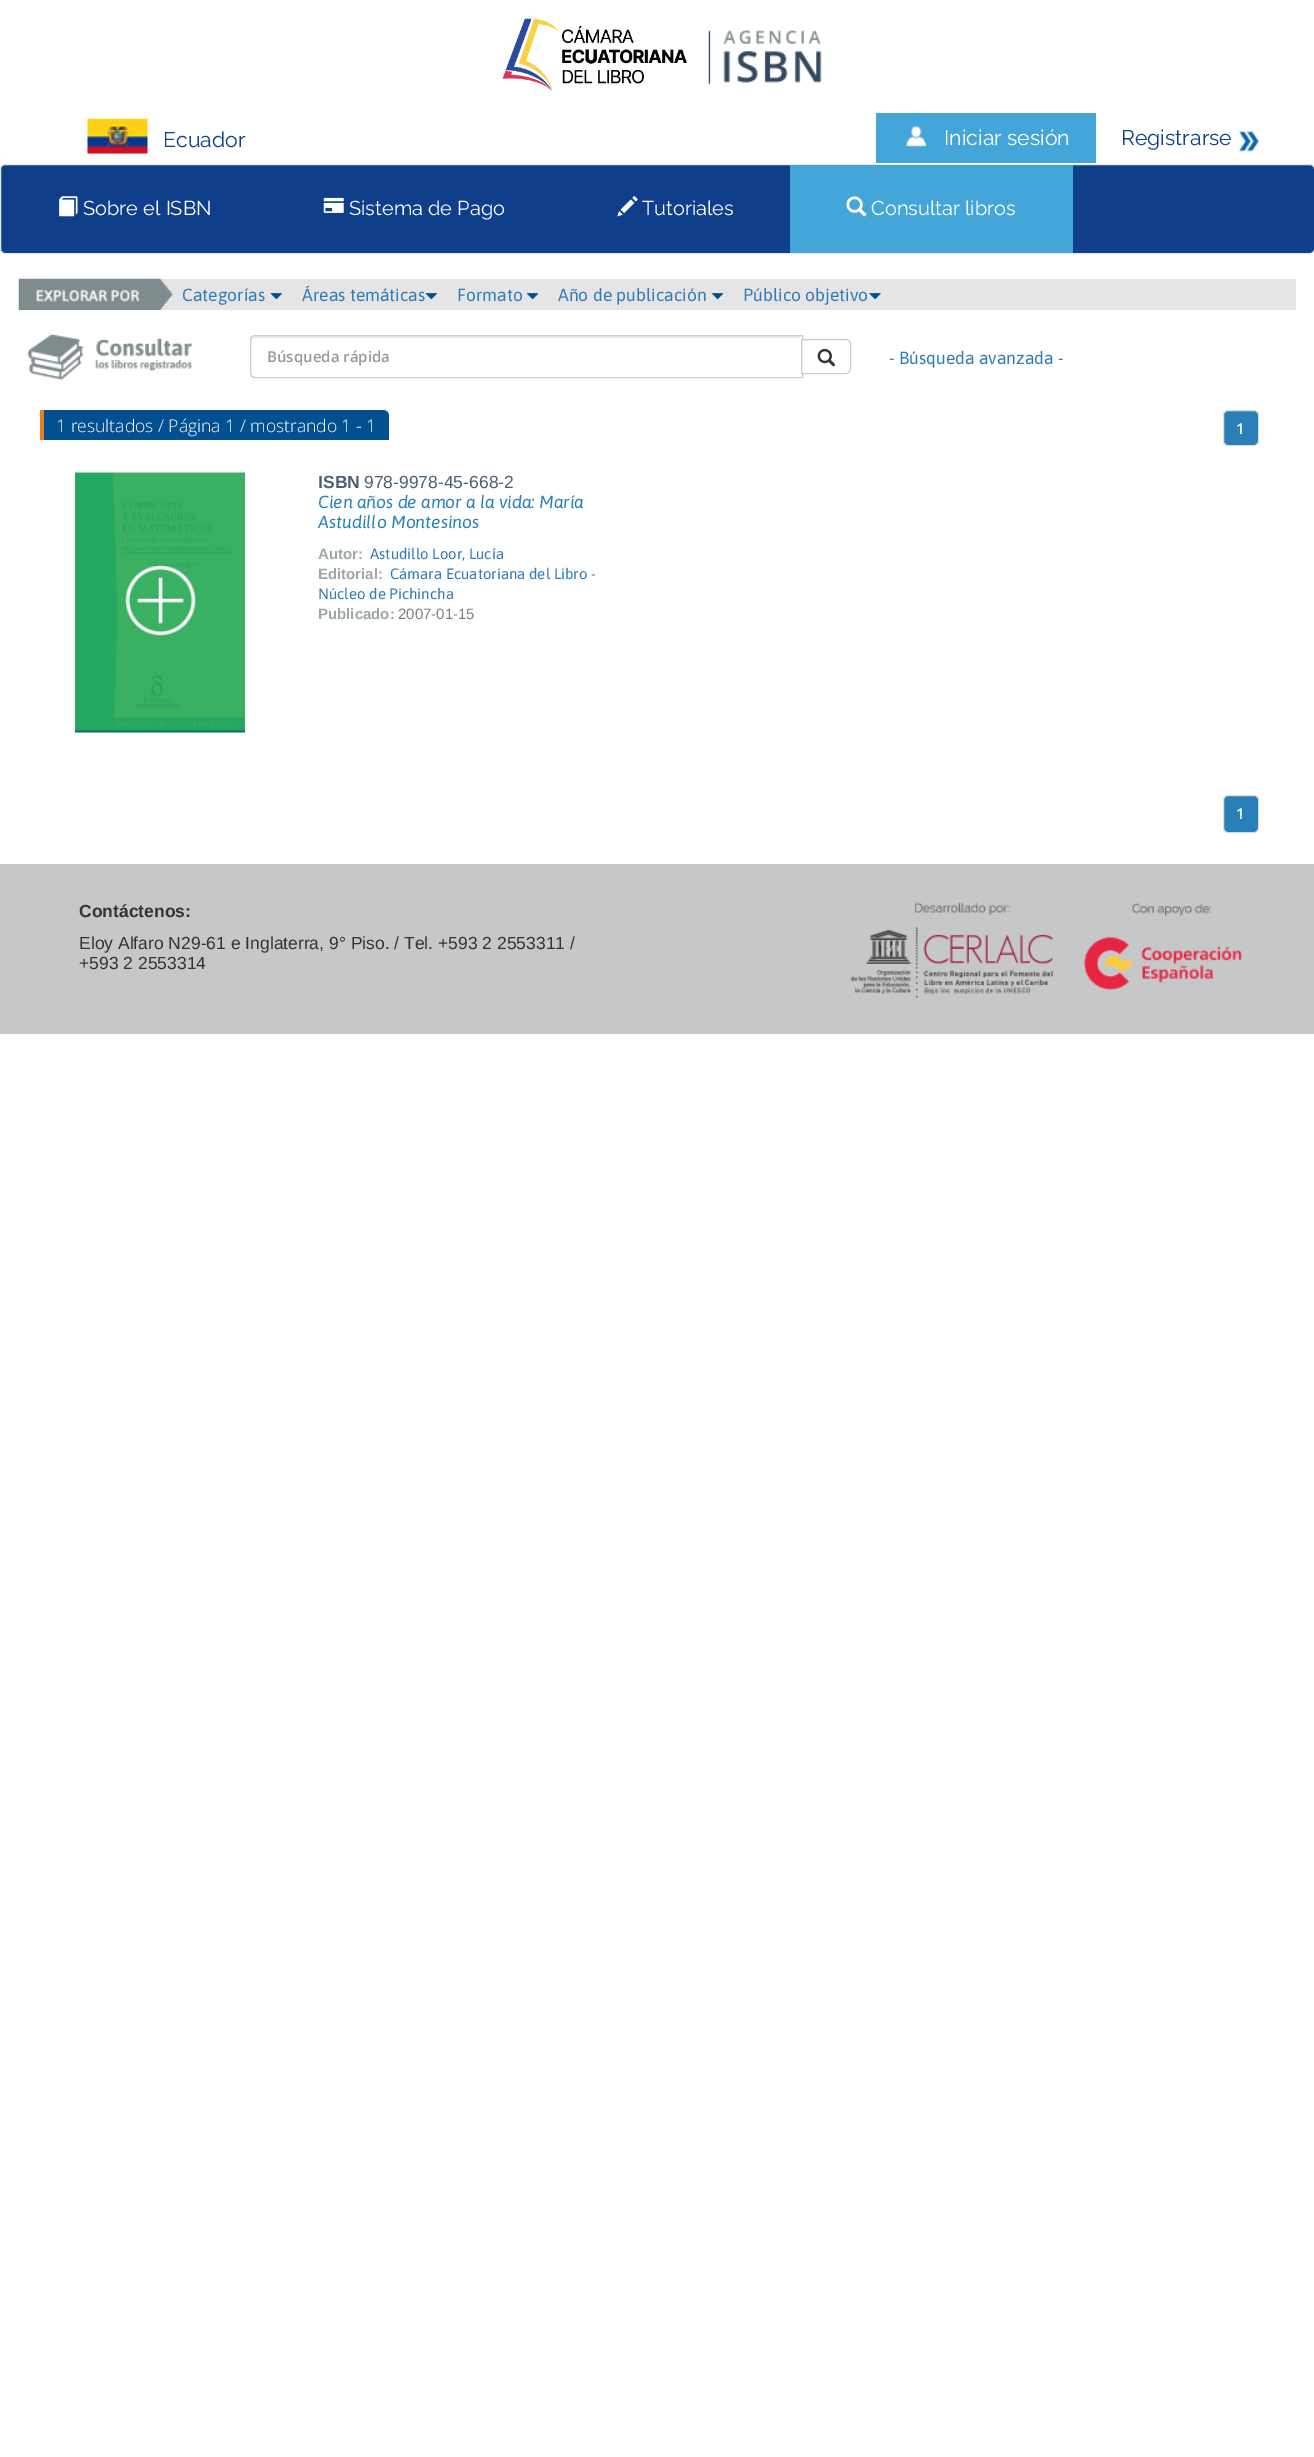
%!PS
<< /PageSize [1314 2457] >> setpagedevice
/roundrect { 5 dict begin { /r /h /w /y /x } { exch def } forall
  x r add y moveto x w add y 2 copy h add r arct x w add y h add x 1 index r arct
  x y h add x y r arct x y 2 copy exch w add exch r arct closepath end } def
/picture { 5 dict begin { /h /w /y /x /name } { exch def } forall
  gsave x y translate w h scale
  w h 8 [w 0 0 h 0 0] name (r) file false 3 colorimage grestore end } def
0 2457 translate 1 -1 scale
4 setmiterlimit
1 setgray
0 0 1314 2457 rectfill
(img1.rgb) 502 18 185 73 picture
(img2.rgb) 708 30 114 54 picture
(img3.rgb) 87 118 61 36 picture
/Raleway-Thin [21.25 0 0 -21.25 0 0] selectfont
0.059 0.243 0.545 setrgbcolor
163 147 moveto (Ecuador) show
0.267 0.647 0.851 setrgbcolor
876 113 220 50 rectfill
(img4.rgb) 906 126 21 21 picture
1 setgray
944 145 moveto (Iniciar sesión) show
0.059 0.243 0.545 setrgbcolor
1121 145 moveto (Registrarse) show
(img5.rgb) 1238 131 21 21 picture
0.5 164.5 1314 89 4.5 roundrect gsave fill grestore
0.906 setgray
stroke
(img6.rgb) 59 196 19 21 picture
/Raleway-Thin [20 0 0 -20 0 0] selectfont
1 setgray
83 215 moveto (Sobre el ISBN) show
(img7.rgb) 323 197 21 16 picture
349 215 moveto (Sistema de Pago) show
(img8.rgb) 617 196 21 21 picture
642 215 moveto (Tutoriales) show
0.267 0.647 0.851 setrgbcolor
790 165 283 88 rectfill
(img9.rgb) 846 196 21 21 picture
1 setgray
871 215 moveto (Consultar libros) show
0.898 setgray
161 279 1135 31 rectfill
(img10.rgb) 18 278 155 32 picture
/Asap-Regular [17.5 0 0 -17.5 0 0] selectfont
0.2 0.478 0.718 setrgbcolor
182 301 moveto (Categorías) show
(img11.rgb) 270 293 12 7 picture
302 301 moveto (Áreas temáticas) show
(img11.rgb) 425 293 12 7 picture
457 301 moveto (Formato) show
(img12.rgb) 526 293 13 7 picture
558 301 moveto (Año de publicación) show
(img12.rgb) 711 293 13 7 picture
743 301 moveto (Público objetivo) show
(img13.rgb) 869 293 12 7 picture
(img14.rgb) 27 333 166 48 picture
0.925 setgray
newpath 255 338 moveto 801 338 lineto 801 336 lineto 255 336 lineto 252 336 251 338 251 341 curveto 251 339 253 338 255 338 curveto closepath fill
0.8 setgray
newpath 255 335.5 moveto 802.5 335.5 lineto 802.5 377.5 lineto 255 377.5 lineto 252.5 377.5 250.5 375.5 250.5 373 curveto 250.5 340 lineto 250.5 337.5 252.5 335.5 255 335.5 curveto closepath stroke
/OpenSans-SemiBold [15 0 0 -15 0 0] selectfont
0.6 setgray
267 362 moveto (Búsqueda rápida) show
1 setgray
newpath 801.5 339.5 moveto 846 339.5 lineto 848.5 339.5 850.5 341.5 850.5 344 curveto 850.5 369 lineto 850.5 371.5 848.5 373.5 846 373.5 curveto 801.5 373.5 lineto closepath gsave fill grestore
0.8 setgray
stroke
(img15.rgb) 817 348 19 19 picture
/Asap-Regular [17.5 0 0 -17.5 0 0] selectfont
0.2 0.478 0.718 setrgbcolor
889 364 moveto (- Búsqueda avanzada -) show
0.008 0.314 0.561 setrgbcolor
newpath 40 410 moveto 383 410 lineto 386.5 410 389 412.5 389 416 curveto 389 440 lineto 40 440 lineto closepath fill
/OpenSans-Light [17.5 0 0 -17.5 0 0] selectfont
1 setgray
56 432 moveto (1 resultados / Página 1 / mostrando 1 - 1) show
0.902 0.494 0.133 setrgbcolor
40 410 4 30 rectfill
0.161 0.502 0.725 setrgbcolor
1223.5 410.5 35 35 4.5 roundrect gsave fill grestore
0.867 setgray
stroke
/OpenSans-SemiBold [15 0 0 -15 0 0] selectfont
1 setgray
1236 434 moveto (1) show
(img16.rgb) 75 472 170 261 picture
/LiberationSans-Bold [17.5 0 0 -17.5 0 0] selectfont
0.302 0.373 0.447 setrgbcolor
318 488 moveto (ISBN) show
/LiberationSans-Regular [17.5 0 0 -17.5 0 0] selectfont
364 488 moveto (978-9978-45-668-2) show
/Asap-Italic [17.5 0 0 -17.5 0 0] selectfont
0.161 0.502 0.725 setrgbcolor
318 508 moveto (Cien años de amor a la vida: María) show
318 528 moveto (Astudillo Montesinos) show
/LiberationSans-Bold [15 0 0 -15 0 0] selectfont
0.616 0.655 0.659 setrgbcolor
318 559 moveto (Autor:) show
/Asap-Regular [15 0 0 -15 0 0] selectfont
0.2 0.478 0.718 setrgbcolor
370 559 moveto (Astudillo Loor, Lucía) show
/LiberationSans-Bold [15 0 0 -15 0 0] selectfont
0.616 0.655 0.659 setrgbcolor
318 579 moveto (Editorial:) show
/Asap-Regular [15 0 0 -15 0 0] selectfont
0.2 0.478 0.718 setrgbcolor
390 579 moveto (Cámara Ecuatoriana del Libro -) show
318 599 moveto (Núcleo de Pichincha) show
/LiberationSans-Bold [15 0 0 -15 0 0] selectfont
0.616 0.655 0.659 setrgbcolor
318 619 moveto (Publicado:) show
/LiberationSans-Regular [15 0 0 -15 0 0] selectfont
0.486 0.502 0.49 setrgbcolor
398 619 moveto (2007-01-15) show
0.161 0.502 0.725 setrgbcolor
1223.5 795.5 35 37 4.5 roundrect gsave fill grestore
0.867 setgray
stroke
/OpenSans-SemiBold [15 0 0 -15 0 0] selectfont
1 setgray
1236 819 moveto (1) show
0.776 0.78 0.784 setrgbcolor
0 864 1314 170 rectfill
/LiberationSans-Bold [17.5 0 0 -17.5 0 0] selectfont
0.2 setgray
79 917 moveto (Contáctenos:) show
/LiberationSans-Regular [17.5 0 0 -17.5 0 0] selectfont
79 949 moveto (Eloy Alfaro N29-61 e Inglaterra, 9° Piso. / Tel. +593 2 2553311 /) show
79 969 moveto (+593 2 2553314) show
(img17.rgb) 850 902 392 96 picture
showpage
